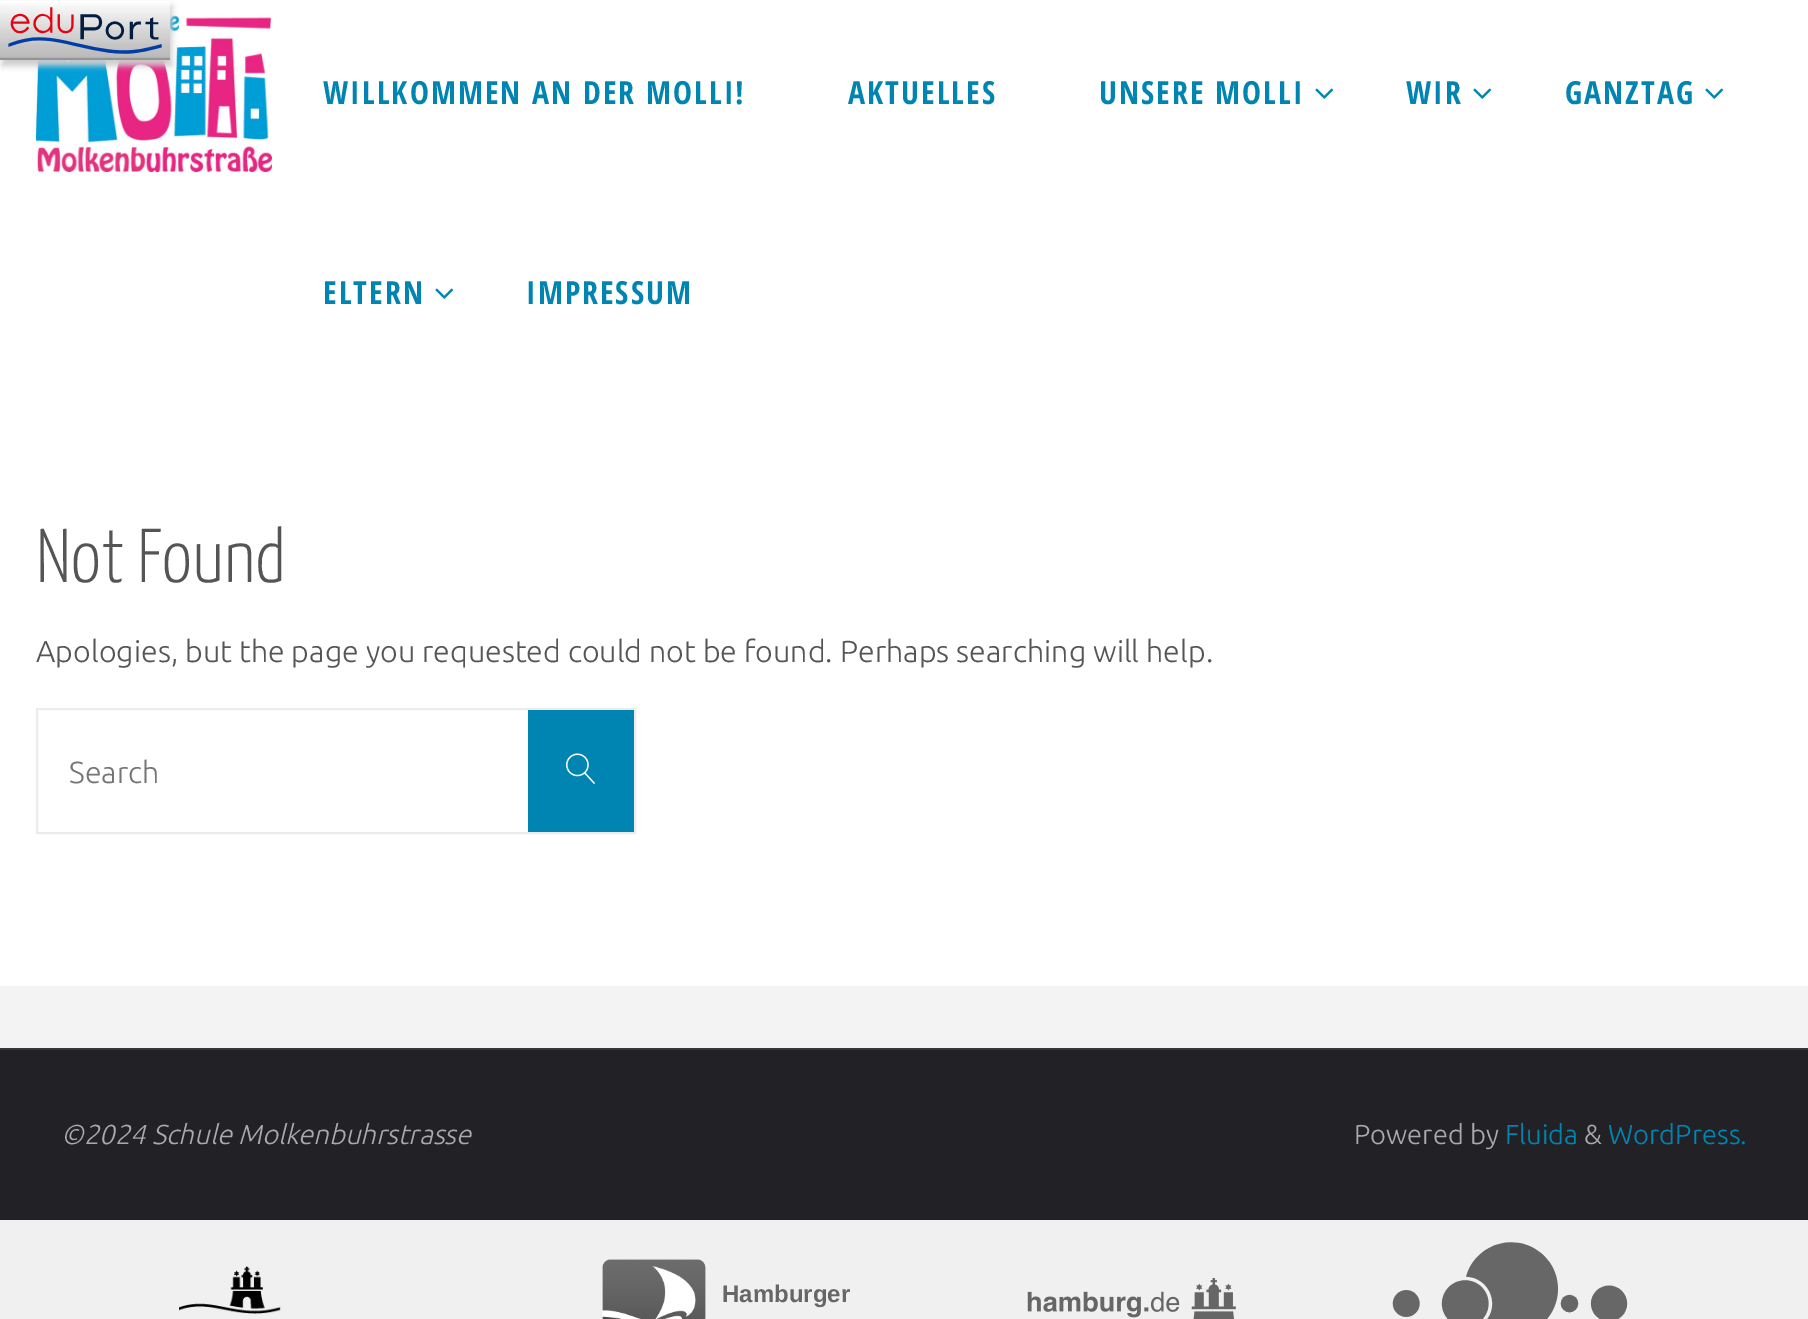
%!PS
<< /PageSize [1808 1319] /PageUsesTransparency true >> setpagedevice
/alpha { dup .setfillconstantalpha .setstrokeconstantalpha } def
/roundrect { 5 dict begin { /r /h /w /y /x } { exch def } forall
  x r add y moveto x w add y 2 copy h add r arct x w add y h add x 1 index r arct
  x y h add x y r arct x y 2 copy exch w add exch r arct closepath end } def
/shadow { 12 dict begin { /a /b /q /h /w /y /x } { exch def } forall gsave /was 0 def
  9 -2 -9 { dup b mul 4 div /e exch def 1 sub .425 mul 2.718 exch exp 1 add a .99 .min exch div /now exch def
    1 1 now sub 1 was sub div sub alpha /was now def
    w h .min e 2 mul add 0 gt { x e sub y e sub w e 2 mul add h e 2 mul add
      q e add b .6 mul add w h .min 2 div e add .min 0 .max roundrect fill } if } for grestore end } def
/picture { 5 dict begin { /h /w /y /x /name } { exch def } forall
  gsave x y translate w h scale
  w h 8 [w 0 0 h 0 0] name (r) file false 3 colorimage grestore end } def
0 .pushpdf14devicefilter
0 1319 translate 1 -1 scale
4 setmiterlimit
0.953 setgray
0 0 1808 1319 rectfill
1 setgray
0 0 1808 986 rectfill
(img2.rgb) 36 12 236 160 picture
0.8 setgray
2 6 170 60 0 3 1 shadow
1 setgray
0 1 170 59 rectfill
(img1.rgb) 0 3 170 57 picture
/OpenSansCondensed-Bold [31.9 0 0 -31.9 0 0] selectfont
0 0.522 0.698 setrgbcolor
323 104 moveto 2 0 (WILLKOMMEN AN DER MOLLI!) ashow
848 104 moveto 2 0 (AKTUELLES) ashow
1099 104 moveto 2 0 (UNSERE MOLLI) ashow
(img3.rgb) 1315 88 19 11 picture
1406 104 moveto 2 0 (WIR) ashow
(img3.rgb) 1473 88 19 11 picture
1565 104 moveto 2 0 (GANZTAG) ashow
(img3.rgb) 1705 88 19 11 picture
323 304 moveto 2 0 (ELTERN) ashow
(img3.rgb) 435 288 19 11 picture
526 304 moveto 2 0 (IMPRESSUM) ashow
/YanoneKaffeesatz-ExtraLight [76 0 0 -76 0 0] selectfont
0.333 setgray
36 582 moveto (Not Found) show
/Ubuntu-Light [30.4 0 0 -30.4 0 0] selectfont
36 662 moveto (Apologies, but the page you requested could not be found. Perhaps searching will help.) show
0.922 setgray
2 setlinewidth
37 709 598 124 rectstroke
0 0.522 0.698 setrgbcolor
528 710 106 122 rectfill
0.459 setgray
69 783 moveto (Search) show
(img4.rgb) 566 753 29 31 picture
0.133 0.133 0.149 setrgbcolor
0 1050 1808 170 rectfill
0.212 0.212 0.227 setrgbcolor
0 1048 1808 2 rectfill
/Ubuntu-LightItalic [27.4 0 0 -27.4 0 0] selectfont
0.667 setgray
61 1144 moveto (©2024 Schule Molkenbuhrstrasse) show
/Ubuntu-Light [27.4 0 0 -27.4 0 0] selectfont
1354 1144 moveto (Powered by) show
0 0.522 0.698 setrgbcolor
1505 1144 moveto (Fluida) show
0.667 setgray
1584 1144 moveto (&) show
0 0.522 0.698 setrgbcolor
1608 1144 moveto (WordPress.) show
0.941 setgray
0 1220 1808 99 rectfill
(img5.rgb) 179 1266 102 48 picture
(img6.rgb) 602 1259 104 60 picture
/LiberationSans-Bold [24 0 0 -24 0 0] selectfont
0.4 setgray
722 1302 moveto (Hamburger) show
(img7.rgb) 1027 1278 209 41 picture
(img8.rgb) 1392 1242 236 77 picture
.poppdf14devicefilter showpage
